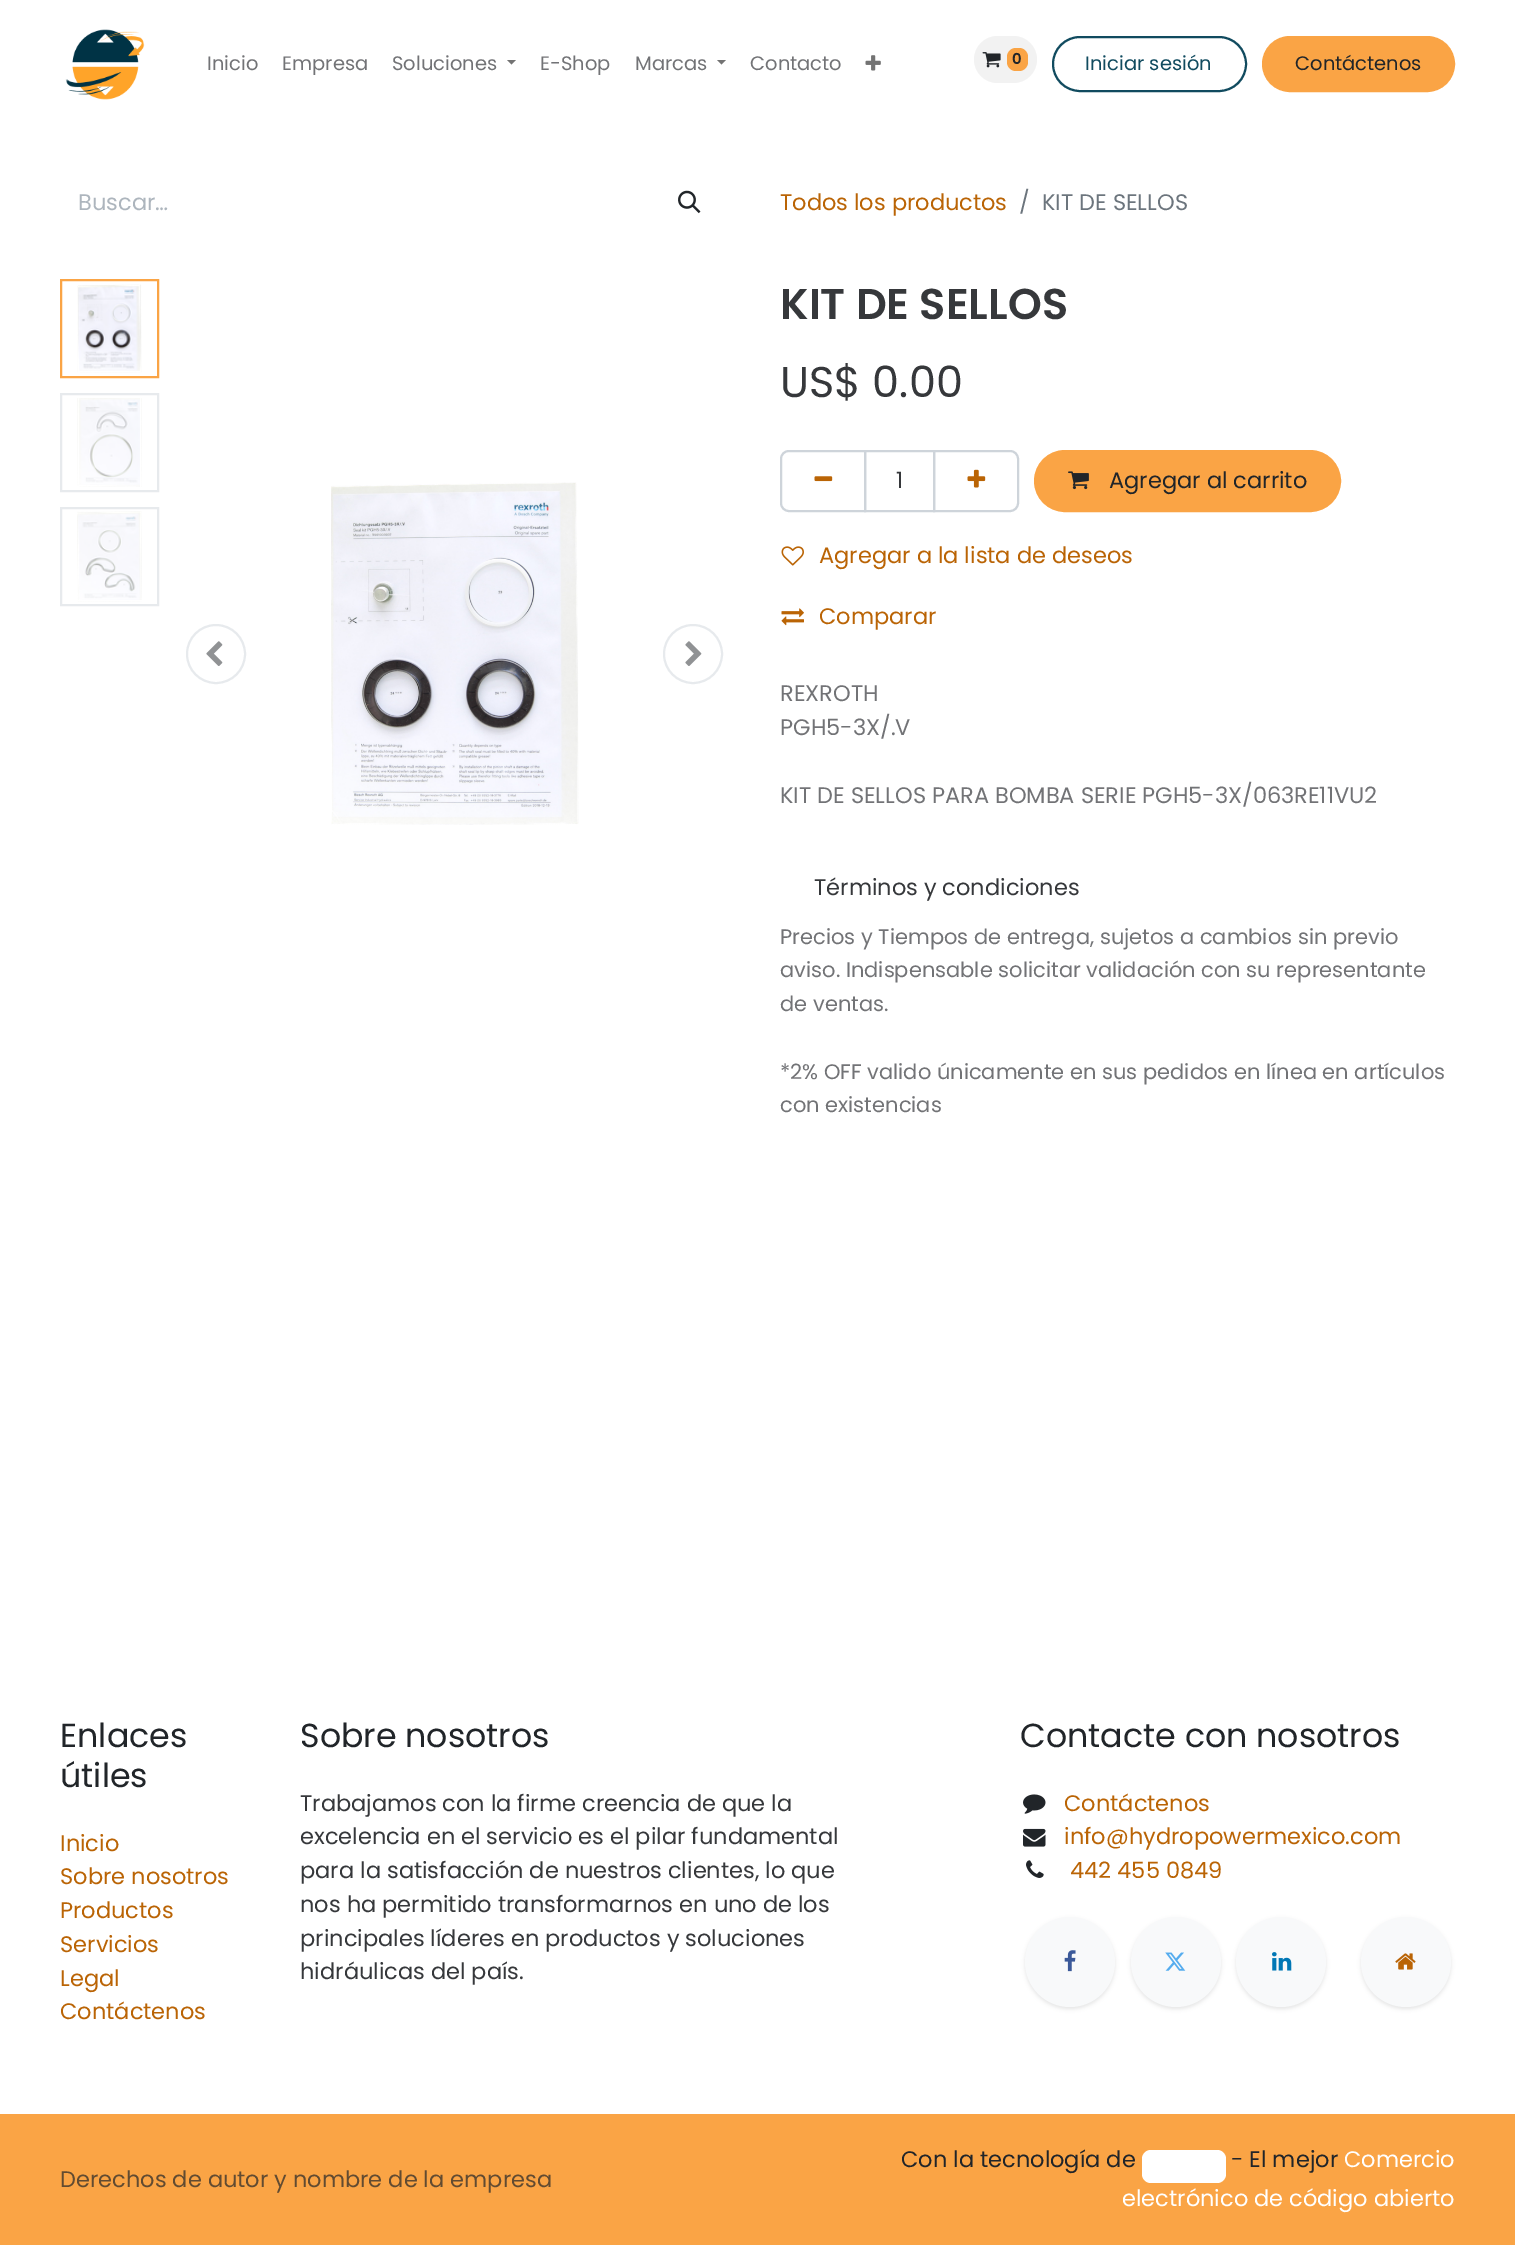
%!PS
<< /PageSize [1515 2245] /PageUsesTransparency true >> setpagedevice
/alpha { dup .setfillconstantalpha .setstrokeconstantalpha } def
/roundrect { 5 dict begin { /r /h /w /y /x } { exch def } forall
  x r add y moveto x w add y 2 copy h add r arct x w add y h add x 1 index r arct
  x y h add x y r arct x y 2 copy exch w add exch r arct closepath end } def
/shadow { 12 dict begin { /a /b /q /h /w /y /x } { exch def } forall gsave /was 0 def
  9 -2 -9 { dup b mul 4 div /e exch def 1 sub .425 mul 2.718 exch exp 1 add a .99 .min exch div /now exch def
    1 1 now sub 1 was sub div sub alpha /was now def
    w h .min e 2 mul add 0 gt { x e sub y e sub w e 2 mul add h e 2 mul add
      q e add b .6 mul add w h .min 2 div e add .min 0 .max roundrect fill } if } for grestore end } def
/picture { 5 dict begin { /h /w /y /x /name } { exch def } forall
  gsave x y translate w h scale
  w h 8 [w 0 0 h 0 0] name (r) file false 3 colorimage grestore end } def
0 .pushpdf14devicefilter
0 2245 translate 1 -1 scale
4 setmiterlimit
1 setgray
0 0 1515 2245 rectfill
(img1.rgb) 65 29 80 71 picture
/Poppins-Regular [19.5 0 0 -19.5 0 0] selectfont
0.447 0.451 0.463 setrgbcolor
207 70 moveto (Inicio) show
282 70 moveto (Empresa) show
392 70 moveto (Soluciones) show
0.451 setgray
newpath 507 60 moveto 516 60 lineto 511.5 64.5 lineto closepath fill
0.447 0.451 0.463 setrgbcolor
540 70 moveto (E-Shop) show
635 70 moveto (Marcas) show
0.451 setgray
newpath 717 60 moveto 726 60 lineto 721.5 64.5 lineto closepath fill
0.447 0.451 0.463 setrgbcolor
750 70 moveto (Contacto) show
(img2.rgb) 865 55 16 16 picture
0.949 setgray
974 36 63 47 23.5 roundrect fill
(img3.rgb) 982 52 19 16 picture
0.98 0.643 0.271 setrgbcolor
1007 48 21 23 9 roundrect fill
/Poppins-SemiBold [15 0 0 -15 0 0] selectfont
0.129 0.145 0.161 setrgbcolor
1012 64 moveto (0) show
0.067 0.294 0.373 setrgbcolor
2 setlinewidth
1053 37 193 54 27 roundrect stroke
/Poppins-Regular [19.5 0 0 -19.5 0 0] selectfont
1085 70 moveto (Iniciar sesión) show
0.98 0.643 0.271 setrgbcolor
1263 37 191 54 27 roundrect gsave fill grestore
stroke
0.129 0.145 0.161 setrgbcolor
1295 70 moveto (Contáctenos) show
/Poppins-Regular [22.5 0 0 -22.5 0 0] selectfont
0.678 0.71 0.741 setrgbcolor
78 210 moveto (Buscar…) show
(img4.rgb) 678 190 23 24 picture
0.729 0.392 0.02 setrgbcolor
780 210 moveto (Todos los productos) show
0.424 0.459 0.49 setrgbcolor
1019 210 moveto (/) show
1042 210 moveto (KIT DE SELLOS) show
0.98 0.643 0.271 setrgbcolor
61 280 97 97 rectstroke
(img5.rgb) 77 284 65 89 picture
0.906 0.918 0.929 setrgbcolor
61 394 97 97 rectstroke
(img6.rgb) 77 398 65 89 picture
61 508 97 97 rectstroke
(img7.rgb) 77 511 65 91 picture
newpath 216 654 29 0 360 arc closepath stroke
(img8.rgb) 206 641 17 25 picture
(img9.rgb) 331 482 248 343 picture
newpath 693 654 29 0 360 arc closepath stroke
(img10.rgb) 685 641 17 25 picture
/Poppins-SemiBold [43 0 0 -43 0 0] selectfont
0.212 0.22 0.231 setrgbcolor
780 319 moveto (KIT DE SELLOS) show
/Poppins-Regular [43 0 0 -43 0 0] selectfont
780 397 moveto (US$ 0.00) show
0.808 0.831 0.855 setrgbcolor
865 451 69 60 rectstroke
newpath 789 451 moveto 865 451 lineto 865 511 lineto 789 511 lineto 784.5 511 781 507.5 781 503 curveto 781 459 lineto 781 454.5 784.5 451 789 451 curveto closepath stroke
(img11.rgb) 814 476 19 6 picture
/Poppins-Regular [22.5 0 0 -22.5 0 0] selectfont
0.212 0.22 0.231 setrgbcolor
896 488 moveto (1) show
0.808 0.831 0.855 setrgbcolor
newpath 934 451 moveto 1010 451 lineto 1014.5 451 1018 454.5 1018 459 curveto 1018 503 lineto 1018 507.5 1014.5 511 1010 511 curveto 934 511 lineto closepath stroke
(img12.rgb) 967 469 19 19 picture
0.98 0.643 0.271 setrgbcolor
1035 451 305 60 30 roundrect gsave fill grestore
stroke
(img13.rgb) 1068 471 21 19 picture
0.129 0.145 0.161 setrgbcolor
1109 488 moveto (Agregar al carrito) show
(img14.rgb) 781 546 23 20 picture
0.729 0.392 0.02 setrgbcolor
819 563 moveto (Agregar a la lista de deseos) show
(img15.rgb) 781 608 23 18 picture
819 624 moveto (Comparar) show
0.447 0.451 0.463 setrgbcolor
780 701 moveto (REXROTH) show
780 735 moveto (PGH5-3X/.V) show
780 803 moveto (KIT DE SELLOS PARA BOMBA SERIE PGH5-3X/063RE11VU2) show
0.212 0.22 0.231 setrgbcolor
814 895 moveto (Términos y condiciones) show
/Poppins-Regular [21 0 0 -21 0 0] selectfont
0.447 0.451 0.463 setrgbcolor
780 944 moveto (Precios y Tiempos de entrega, sujetos a cambios sin previo) show
780 977 moveto (aviso. Indispensable solicitar validación con su representante) show
780 1011 moveto (de ventas.) show
780 1079 moveto (*2% OFF valido únicamente en sus pedidos en línea en artículos) show
780 1112 moveto (con existencias) show
/Poppins-Regular [33.25 0 0 -33.25 0 0] selectfont
0.129 0.145 0.161 setrgbcolor
60 1747 moveto (Enlaces) show
60 1787 moveto (útiles) show
/Poppins-Regular [22.5 0 0 -22.5 0 0] selectfont
0.729 0.392 0.02 setrgbcolor
60 1851 moveto (Inicio) show
60 1884 moveto (Sobre nosotros) show
60 1918 moveto (Productos) show
60 1952 moveto (Servicios) show
60 1986 moveto (Legal) show
60 2019 moveto (Contáctenos) show
/Poppins-Regular [33.25 0 0 -33.25 0 0] selectfont
0.129 0.145 0.161 setrgbcolor
300 1747 moveto (Sobre nosotros) show
/Poppins-Regular [22.5 0 0 -22.5 0 0] selectfont
0.212 0.22 0.231 setrgbcolor
300 1811 moveto (Trabajamos con la firme creencia de que la) show
300 1844 moveto (excelencia en el servicio es el pilar fundamental) show
300 1878 moveto (para la satisfacción de nuestros clientes, lo que) show
300 1912 moveto (nos ha permitido transformarnos en uno de los) show
300 1946 moveto (principales líderes en productos y soluciones) show
300 1979 moveto (hidráulicas del país.) show
/Poppins-Regular [33.25 0 0 -33.25 0 0] selectfont
0.129 0.145 0.161 setrgbcolor
1020 1747 moveto (Contacte con nosotros) show
(img16.rgb) 1023 1794 23 20 picture
/Poppins-Regular [22.5 0 0 -22.5 0 0] selectfont
0.729 0.392 0.02 setrgbcolor
1064 1811 moveto (Contáctenos) show
(img17.rgb) 1023 1828 23 19 picture
1064 1844 moveto (info@hydropowermexico.com) show
(img18.rgb) 1026 1860 18 18 picture
1070 1878 moveto (442 455 0849) show
0 setgray
1025 1919 90 90 45 2 0.1 shadow
0.973 0.976 0.98 setrgbcolor
newpath 1070 1962 45 0 360 arc closepath fill
(img19.rgb) 1064 1950 12 22 picture
0 setgray
1131 1919 90 90 45 2 0.1 shadow
0.973 0.976 0.98 setrgbcolor
newpath 1176 1962 45 0 360 arc closepath fill
(img20.rgb) 1165 1952 21 19 picture
0 setgray
1236 1919 90 90 45 2 0.1 shadow
0.973 0.976 0.98 setrgbcolor
newpath 1281 1962 45 0 360 arc closepath fill
(img21.rgb) 1272 1952 20 19 picture
0 setgray
1361 1919 90 90 45 2 0.1 shadow
0.973 0.976 0.98 setrgbcolor
newpath 1406 1962 45 0 360 arc closepath fill
(img22.rgb) 1395 1953 21 17 picture
0.98 0.643 0.271 setrgbcolor
0 2114 1515 131 rectfill
0.384 0.294 0.192 setrgbcolor
60 2187 moveto (Derechos de autor y nombre de la empresa) show
0.129 0.145 0.161 setrgbcolor
901 2167 moveto (Con la tecnología de) show
1 setgray
1142 2150 84 33 9 roundrect fill
0.129 0.145 0.161 setrgbcolor
1231 2167 moveto (- El mejor) show
1 setgray
1344 2167 moveto (Comercio) show
1122 2206 moveto (electrónico de código abierto) show
.poppdf14devicefilter showpage
